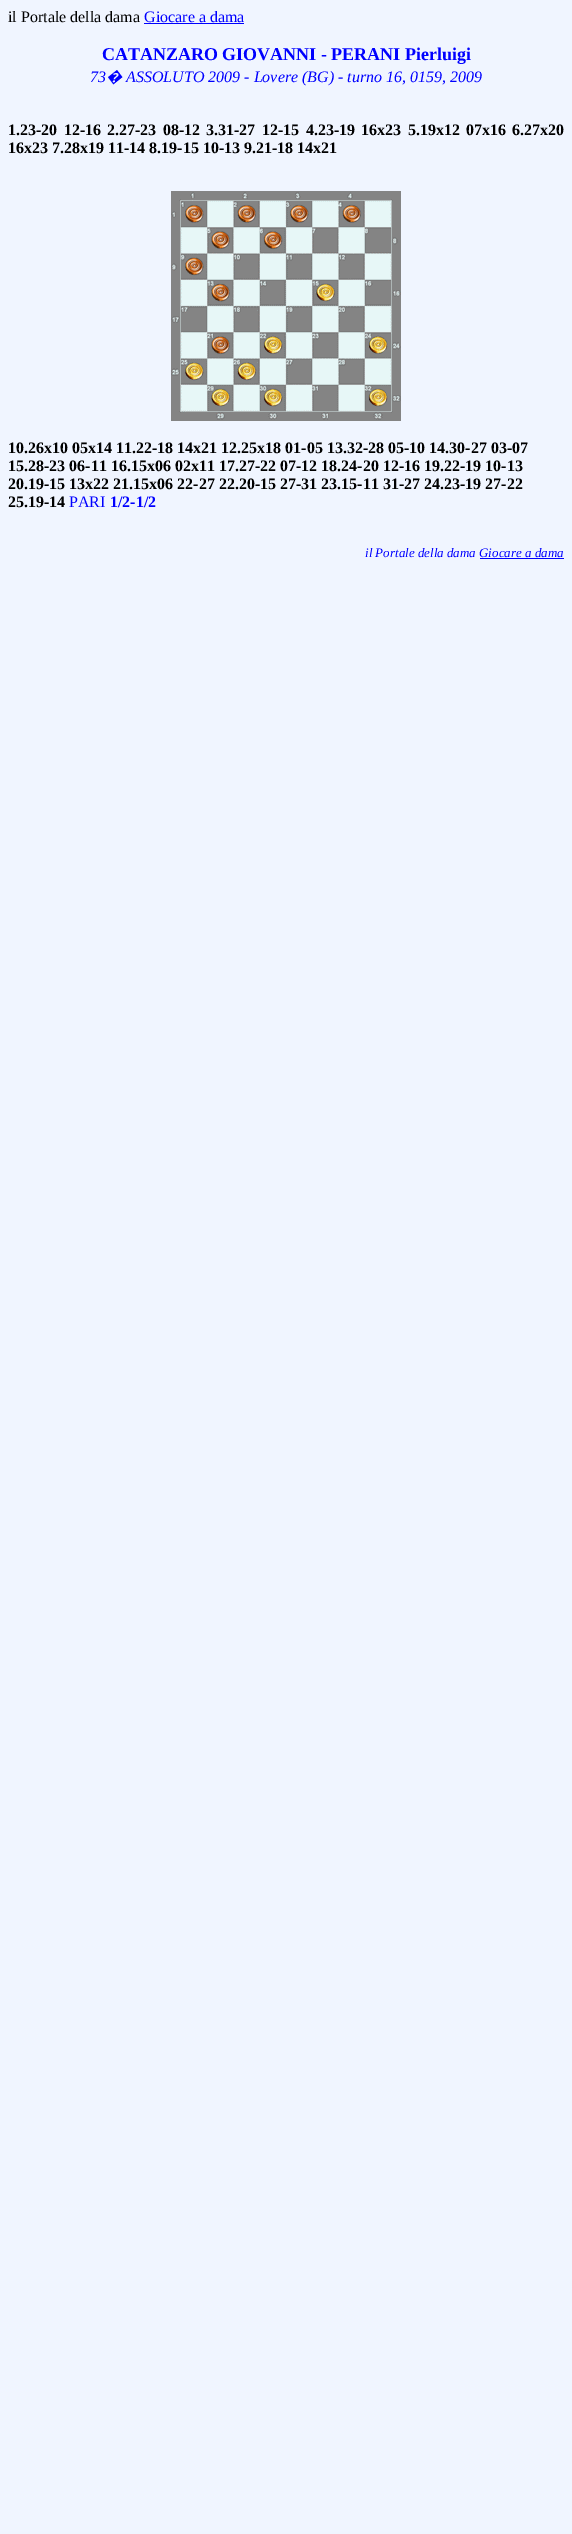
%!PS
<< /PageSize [572 2534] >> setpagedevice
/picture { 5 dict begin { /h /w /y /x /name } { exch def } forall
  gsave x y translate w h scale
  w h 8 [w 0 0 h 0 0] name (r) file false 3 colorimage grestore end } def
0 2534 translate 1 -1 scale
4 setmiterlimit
0.941 0.961 1 setrgbcolor
0 0 572 2534 rectfill
/LiberationSerif-Regular [16 0 0 -16 0 0] selectfont
0 setgray
8 22 moveto (il Portale della dama) show
0 0 1 setrgbcolor
144 22 moveto (Giocare a dama) show
144 23 100 1 rectfill
/LiberationSerif-Bold [18 0 0 -18 0 0] selectfont
102 60 moveto (CATANZARO GIOVANNI - PERANI Pierluigi) show
/LiberationSerif-Italic [16 0 0 -16 0 0] selectfont
90 82 moveto (73) show
/NotoSans-Italic [16 0 0 -16 0 0] selectfont
106 82 moveto (�) show
/LiberationSerif-Italic [16 0 0 -16 0 0] selectfont
126 82 moveto (ASSOLUTO 2009 - Lovere \(BG\) - turno 16, 0159, 2009) show
/LiberationSerif-Bold [16 0 0 -16 0 0] selectfont
0 setgray
8 135 moveto (1.23-20) show
64 135 moveto (12-16) show
107 135 moveto (2.27-23) show
163 135 moveto (08-12) show
206 135 moveto (3.31-27) show
262 135 moveto (12-15) show
306 135 moveto (4.23-19) show
361 135 moveto (16x23) show
408 135 moveto (5.19x12) show
466 135 moveto (07x16) show
512 135 moveto (6.27x20) show
8 153 moveto (16x23 7.28x19 11-14 8.19-15 10-13 9.21-18 14x21) show
(img1.rgb) 171 191 230 230 picture
8 453 moveto (10.26x10 05x14 11.22-18 14x21 12.25x18 01-05 13.32-28 05-10 14.30-27 03-07) show
8 471 moveto (15.28-23 06-11 16.15x06 02x11 17.27-22 07-12 18.24-20 12-16 19.22-19 10-13) show
8 489 moveto (20.19-15 13x22 21.15x06 22-27 22.20-15 27-31 23.15-11 31-27 24.23-19 27-22) show
8 507 moveto (25.19-14) show
/LiberationSerif-Regular [16 0 0 -16 0 0] selectfont
0 0 1 setrgbcolor
69 507 moveto (PARI) show
/LiberationSerif-Bold [16 0 0 -16 0 0] selectfont
110 507 moveto (1/2-1/2) show
/LiberationSerif-Italic [13 0 0 -13 0 0] selectfont
365 557 moveto (il Portale della dama Giocare a dama) show
480 558 84 1 rectfill
showpage
